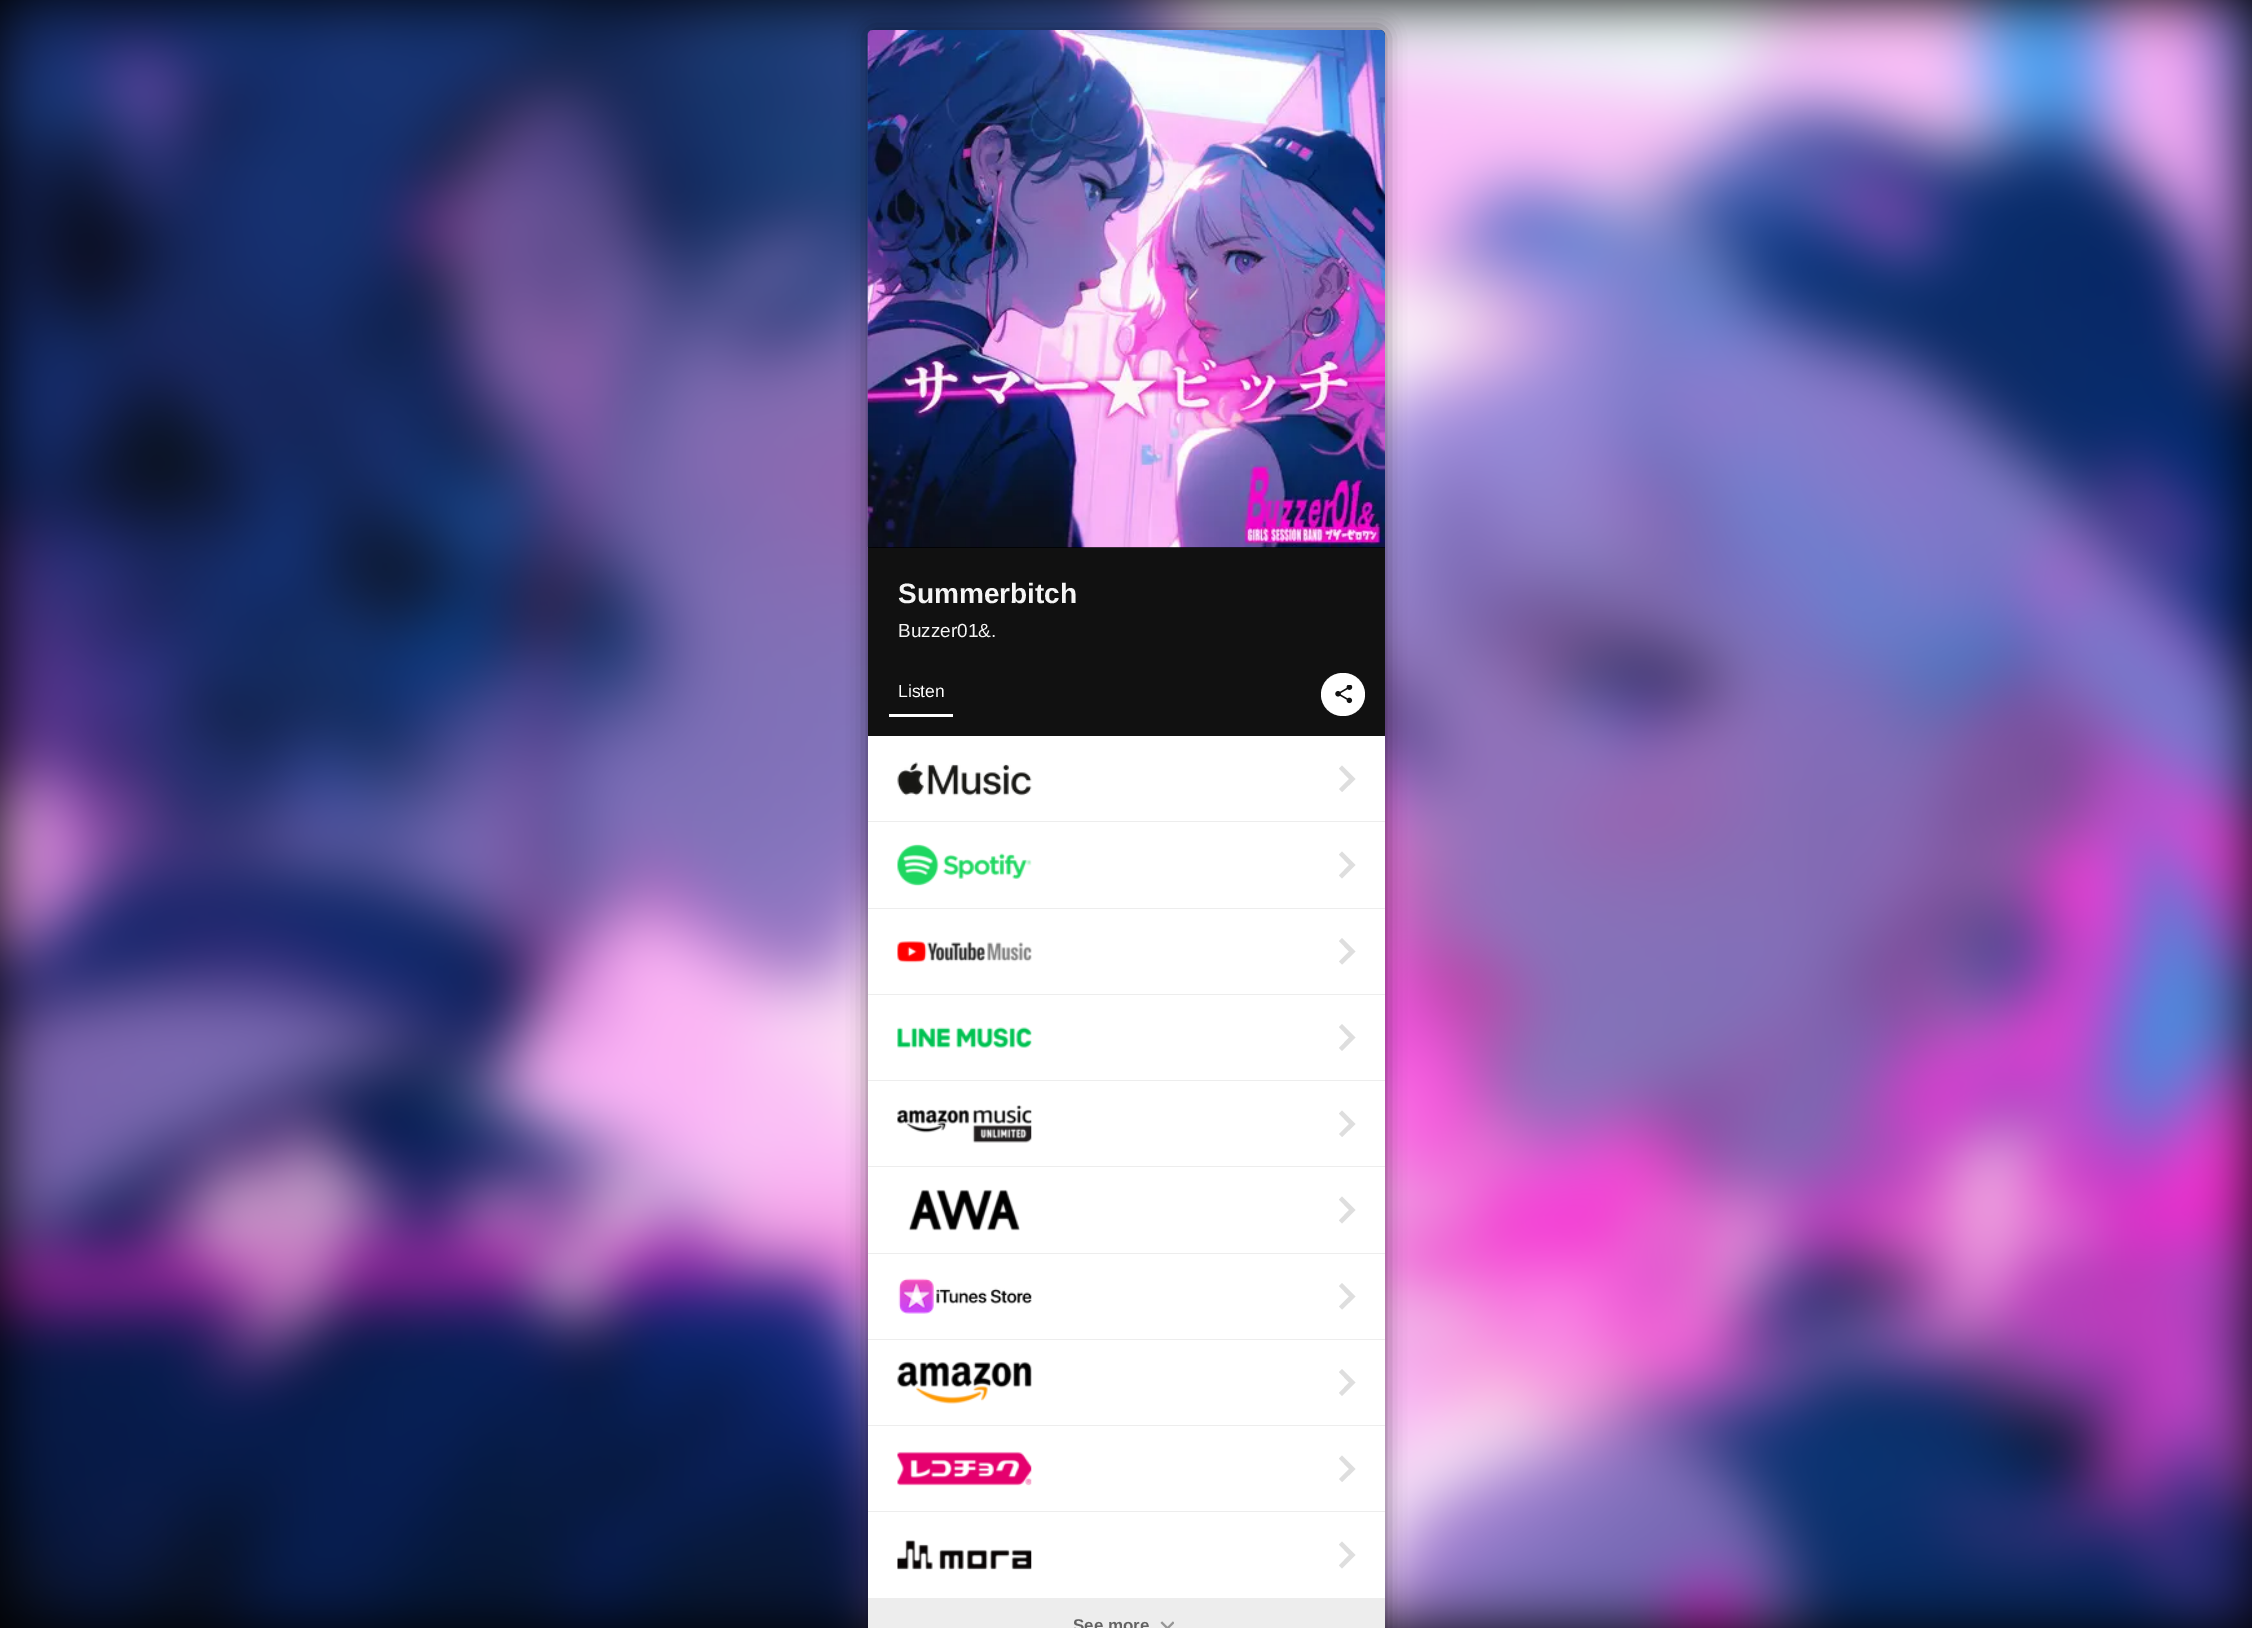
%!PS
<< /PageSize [2252 1628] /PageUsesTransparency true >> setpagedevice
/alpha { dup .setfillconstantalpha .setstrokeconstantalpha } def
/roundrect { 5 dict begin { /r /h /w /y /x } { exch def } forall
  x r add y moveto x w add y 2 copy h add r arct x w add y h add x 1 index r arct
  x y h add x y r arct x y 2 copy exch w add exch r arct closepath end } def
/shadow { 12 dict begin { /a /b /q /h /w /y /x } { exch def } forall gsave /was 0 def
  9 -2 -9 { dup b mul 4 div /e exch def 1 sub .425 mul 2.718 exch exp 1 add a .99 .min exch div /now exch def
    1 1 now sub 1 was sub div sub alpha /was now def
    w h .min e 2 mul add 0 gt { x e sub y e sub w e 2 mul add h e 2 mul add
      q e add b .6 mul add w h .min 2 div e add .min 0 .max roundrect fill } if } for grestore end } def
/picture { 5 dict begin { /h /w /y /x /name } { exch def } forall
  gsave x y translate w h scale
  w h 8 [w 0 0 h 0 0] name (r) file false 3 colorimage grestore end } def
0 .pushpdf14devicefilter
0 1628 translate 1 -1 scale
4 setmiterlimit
0 setgray
0 0 2252 1628 rectfill
(img1.rgb) 0 0 2252 1628 picture
868 30 517 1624 5 10 0.47 shadow
newpath 873 30 moveto 1380 30 lineto 1383 30 1385 32 1385 35 curveto 1385 548 lineto 868 548 lineto 868 35 lineto 868 32 870 30 873 30 curveto closepath fill
(img2.rgb) 867 30 518 518 picture
0.067 setgray
868 548 517 188 rectfill
/LiberationSans-Bold [28 0 0 -28 0 0] selectfont
0.961 setgray
898 603 moveto (Summerbitch) show
/LiberationSans-Regular [19 0 0 -19 0 0] selectfont
898 637 moveto (Buzzer01&.) show
/LiberationSans-Regular [17.5 0 0 -17.5 0 0] selectfont
1 setgray
898 697 moveto (Listen) show
889 714 64 3 rectfill
1321 673 44 43 21.5 roundrect fill
(img3.rgb) 1335 685 18 19 picture
868 736 517 862 rectfill
(img4.rgb) 897 762 135 34 picture
0.871 setgray
newpath 1339 789 moveto 1349 779 lineto 1339 768.5 lineto 1342 765.5 lineto 1355.5 779 lineto 1342 792 lineto closepath fill
0.929 setgray
868 821 517 1 rectfill
(img5.rgb) 897 844 135 42 picture
0.871 setgray
newpath 1339 875.5 moveto 1349 865 lineto 1339 854.5 lineto 1342 851.5 lineto 1355.5 865 lineto 1342 878.5 lineto closepath fill
0.929 setgray
868 908 517 1 rectfill
(img6.rgb) 897 941 135 22 picture
0.871 setgray
newpath 1339 961.5 moveto 1349 951.5 lineto 1339 941 lineto 1342 938 lineto 1355.5 951.5 lineto 1342 964.5 lineto closepath fill
0.929 setgray
868 994 517 1 rectfill
(img7.rgb) 897 1027 135 21 picture
0.871 setgray
newpath 1339 1048 moveto 1349 1037.5 lineto 1339 1027 lineto 1342 1024 lineto 1355.5 1037.5 lineto 1342 1051 lineto closepath fill
0.929 setgray
868 1080 517 1 rectfill
(img8.rgb) 897 1105 135 38 picture
0.871 setgray
newpath 1339 1134 moveto 1349 1124 lineto 1339 1113.5 lineto 1342 1110.5 lineto 1355.5 1124 lineto 1342 1137 lineto closepath fill
0.929 setgray
868 1166 517 1 rectfill
(img9.rgb) 908 1189 112 42 picture
0.871 setgray
newpath 1339 1220.5 moveto 1349 1210 lineto 1339 1199.5 lineto 1342 1196.5 lineto 1355.5 1210 lineto 1342 1223.5 lineto closepath fill
0.929 setgray
868 1253 517 1 rectfill
(img10.rgb) 898 1278 134 36 picture
0.871 setgray
newpath 1339 1306.5 moveto 1349 1296.5 lineto 1339 1286 lineto 1342 1283 lineto 1355.5 1296.5 lineto 1342 1309.5 lineto closepath fill
0.929 setgray
868 1339 517 1 rectfill
(img11.rgb) 897 1361 135 43 picture
0.871 setgray
newpath 1339 1393 moveto 1349 1382.5 lineto 1339 1372 lineto 1342 1369 lineto 1355.5 1382.5 lineto 1342 1396 lineto closepath fill
0.929 setgray
868 1425 517 1 rectfill
(img12.rgb) 897 1451 135 35 picture
0.871 setgray
newpath 1339 1479 moveto 1349 1469 lineto 1339 1458.5 lineto 1342 1455.5 lineto 1355.5 1469 lineto 1342 1482 lineto closepath fill
0.929 setgray
868 1511 517 1 rectfill
(img13.rgb) 897 1540 135 30 picture
0.871 setgray
newpath 1339 1565.5 moveto 1349 1555 lineto 1339 1544.5 lineto 1342 1541.5 lineto 1355.5 1555 lineto 1342 1568.5 lineto closepath fill
0.929 setgray
868 1598 517 30 rectfill
/LiberationSans-Bold [17 0 0 -17 0 0] selectfont
0.388 setgray
1073 1631 moveto (See more) show
(img14.rgb) 1160 1621 14 7 picture
.poppdf14devicefilter showpage
